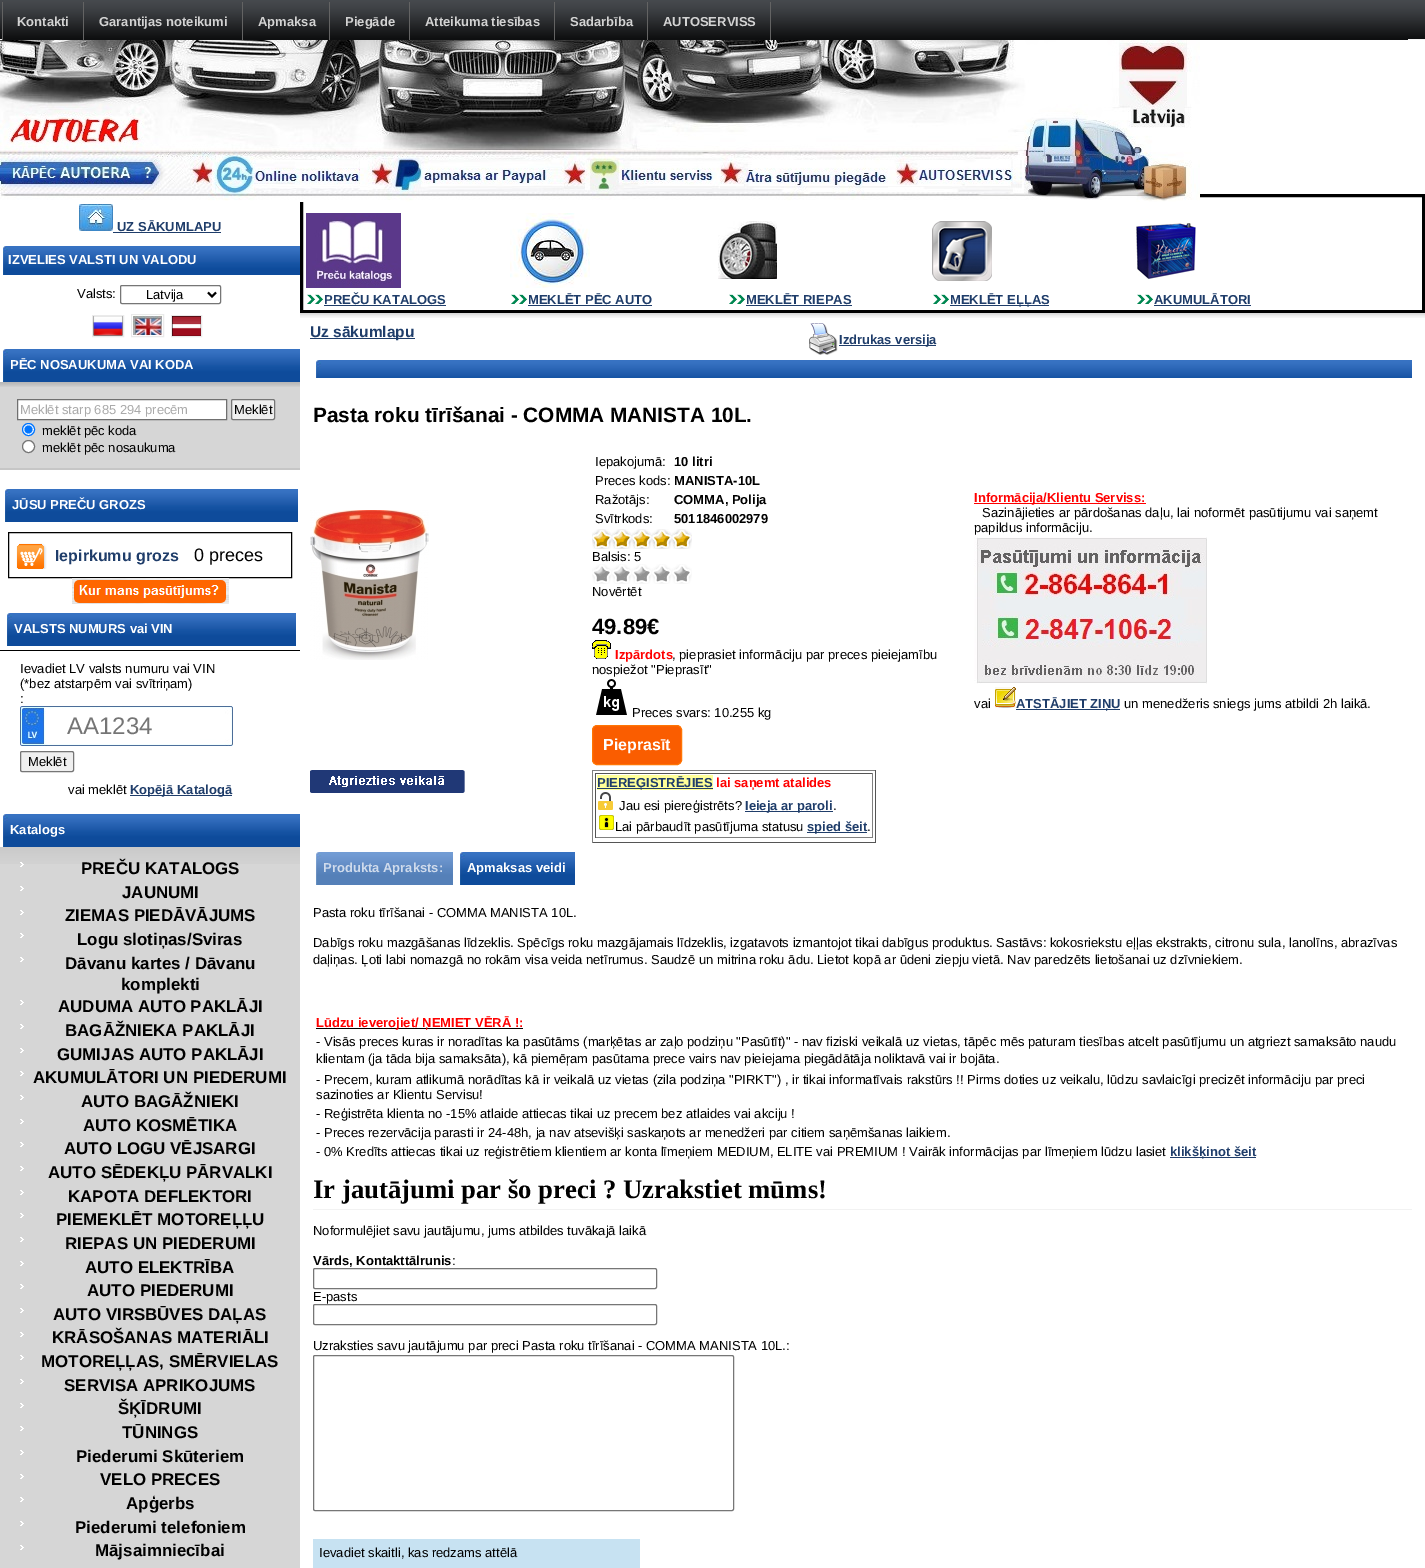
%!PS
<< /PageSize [1425 1568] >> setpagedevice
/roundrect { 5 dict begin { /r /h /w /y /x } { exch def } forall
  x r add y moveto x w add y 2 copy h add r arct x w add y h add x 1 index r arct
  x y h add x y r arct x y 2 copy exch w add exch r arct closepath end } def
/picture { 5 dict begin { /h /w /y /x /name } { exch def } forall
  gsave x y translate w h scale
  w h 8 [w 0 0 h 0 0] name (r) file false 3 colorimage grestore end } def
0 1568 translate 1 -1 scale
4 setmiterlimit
1 setgray
0 0 1425 1568 rectfill
(img1.rgb) 0 0 1425 40 picture
0.055 0.059 0.063 setrgbcolor
2 39 1406 1 rectfill
0.388 setgray
2 2 1 40 rectfill
83 2 1 40 rectfill
/LiberationSans-Bold [13 0 0 -13 0 0] selectfont
0.827 setgray
17 26 moveto (Kontakti) show
0.388 setgray
242 2 1 40 rectfill
0.827 setgray
99 26 moveto (Garantijas noteikumi) show
0.388 setgray
329 2 1 40 rectfill
0.827 setgray
258 26 moveto (Apmaksa) show
0.388 setgray
409 2 1 40 rectfill
0.827 setgray
345 26 moveto (Piegāde) show
0.388 setgray
554 2 1 40 rectfill
0.827 setgray
425 26 moveto (Atteikuma tiesības) show
0.388 setgray
647 2 1 40 rectfill
0.827 setgray
570 26 moveto (Sadarbība) show
0.388 setgray
770 2 1 40 rectfill
0.827 setgray
663 26 moveto (AUTOSERVISS) show
0 setgray
3 setlinewidth
301.5 195.5 1122 116 rectstroke
(img2.rgb) 0 40 1200 162 picture
(img3.rgb) 79 204 34 27 picture
0.122 0.239 0.416 setrgbcolor
117 231 moveto (UZ SĀKUMLAPU) show
113 232 108 1 rectfill
(img4.rgb) 3 246 297 29 picture
1 setgray
8 264 moveto (IZVELIES VALSTI UN VALODU) show
/LiberationSans-Regular [13 0 0 -13 0 0] selectfont
0 setgray
77 298 moveto (Valsts:) show
0.463 setgray
1 setlinewidth
120.5 285.5 100 18 1.5 roundrect stroke
0 setgray
2 setlinewidth
newpath 208 292.5 moveto 212 296.5 lineto 216 292.5 lineto stroke
146 299 moveto (Latvija) show
0.918 setgray
1 setlinewidth
92.5 315.5 31 21 rectstroke
131.5 314.5 32 22 rectstroke
(img5.rgb) 93 316 30 20 picture
(img6.rgb) 132 315 31 21 picture
171.5 315.5 30 21 rectstroke
(img7.rgb) 172 316 29 20 picture
(img8.rgb) 3 349 297 33 picture
/LiberationSans-Bold [13 0 0 -13 0 0] selectfont
1 setgray
10 369 moveto (PĒC NOSAUKUMA VAI KODA) show
0.839 setgray
0 387 300 81 rectfill
(img9.rgb) 0 382 300 5 picture
0.776 setgray
0 468 300 2 rectfill
1 setgray
newpath 17.5 399.5 moveto 226.5 399.5 lineto 226.5 419.5 lineto 17.5 419.5 lineto closepath gsave fill grestore
0.439 setgray
stroke
/LiberationSans-Regular [13 0 0 -13 0 0] selectfont
0.667 setgray
20 414 moveto (Meklēt starp 685 294 precēm) show
0.937 setgray
231.5 399.5 43 20 1.5 roundrect gsave fill grestore
0.463 setgray
stroke
0 setgray
234 414 moveto (Meklēt) show
1 setgray
newpath 28.5 429.5 6 0 360 arc closepath gsave fill grestore
0 0.459 1 setrgbcolor
stroke
newpath 28.5 429.5 4 0 360 arc closepath fill
0 setgray
42 435 moveto (meklēt pēc koda) show
1 setgray
newpath 28.5 446.5 6 0 360 arc closepath gsave fill grestore
0.463 setgray
stroke
0 setgray
42 452 moveto (meklēt pēc nosaukuma) show
(img10.rgb) 5 489 293 33 picture
/LiberationSans-Bold [13 0 0 -13 0 0] selectfont
1 setgray
12 509 moveto (JŪSU PREČU GROZS) show
0 setgray
8.5 532.5 283 45 rectstroke
(img11.rgb) 16 543 31 26 picture
/LiberationSans-Bold [16 0 0 -16 0 0] selectfont
0.122 0.239 0.416 setrgbcolor
55 561 moveto (Iepirkumu grozs) show
/LiberationSans-Regular [18 0 0 -18 0 0] selectfont
0 setgray
194 561 moveto (0 preces) show
(img12.rgb) 72 578 157 26 picture
(img13.rgb) 7 613 289 33 picture
/LiberationSans-Bold [13 0 0 -13 0 0] selectfont
1 setgray
14 633 moveto (VALSTS NUMURS vai VIN) show
0 setgray
0 650 300 1 rectfill
/LiberationSans-Regular [13 0 0 -13 0 0] selectfont
20 673 moveto (Ievadiet LV valsts numuru vai VIN) show
20 688 moveto (\(*bez atstarpēm vai svītriņam\)) show
20 703 moveto (:) show
(img14.rgb) 20 706 213 40 picture
/LiberationSans-Regular [24 0 0 -24 0 0] selectfont
0.459 setgray
67 734 moveto (AA1234) show
0.937 setgray
20.5 751.5 53 20 1.5 roundrect gsave fill grestore
0.463 setgray
stroke
/LiberationSans-Regular [13 0 0 -13 0 0] selectfont
0 setgray
28 766 moveto (Meklēt) show
68 794 moveto (vai meklēt) show
0.122 0.239 0.416 setrgbcolor
130 795 102 1 rectfill
/LiberationSans-Bold [13 0 0 -13 0 0] selectfont
130 794 moveto (Kopējā Katalogā) show
(img8.rgb) 3 814 297 33 picture
1 setgray
10 834 moveto (Katalogs) show
0.839 setgray
0 864 300 704 rectfill
(img15.rgb) 0 847 300 17 picture
(img16.rgb) 20 862 4 5 picture
/LiberationSans-Bold [16.9 0 0 -16.9 0 0] selectfont
0 setgray
81 874 moveto (PREČU KATALOGS) show
(img17.rgb) 20 886 4 5 picture
122 898 moveto (JAUNUMI) show
(img17.rgb) 20 910 4 5 picture
65 921 moveto (ZIEMAS PIEDĀVĀJUMS) show
(img17.rgb) 20 933 4 5 picture
77 945 moveto (Logu slotiņas/Sviras) show
(img17.rgb) 20 957 4 5 picture
65 969 moveto (Dāvanu kartes / Dāvanu) show
121 990 moveto (komplekti) show
(img17.rgb) 20 1000 4 5 picture
58 1012 moveto (AUDUMA AUTO PAKLĀJI) show
(img17.rgb) 20 1024 4 5 picture
65 1036 moveto (BAGĀŽNIEKA PAKLĀJI) show
(img17.rgb) 20 1048 4 5 picture
57 1060 moveto (GUMIJAS AUTO PAKLĀJI) show
(img17.rgb) 20 1071 4 5 picture
33 1083 moveto (AKUMULĀTORI UN PIEDERUMI) show
(img17.rgb) 20 1095 4 5 picture
81 1107 moveto (AUTO BAGĀŽNIEKI) show
(img17.rgb) 20 1119 4 5 picture
83 1131 moveto (AUTO KOSMĒTIKA) show
(img17.rgb) 20 1142 4 5 picture
64 1154 moveto (AUTO LOGU VĒJSARGI) show
(img17.rgb) 20 1166 4 5 picture
48 1178 moveto (AUTO SĒDEKĻU PĀRVALKI) show
(img17.rgb) 20 1190 4 5 picture
68 1202 moveto (KAPOTA DEFLEKTORI) show
(img17.rgb) 20 1213 4 5 picture
56 1225 moveto (PIEMEKLĒT MOTOREĻĻU) show
(img17.rgb) 20 1237 4 5 picture
65 1249 moveto (RIEPAS UN PIEDERUMI) show
(img17.rgb) 20 1261 4 5 picture
85 1273 moveto (AUTO ELEKTRĪBA) show
(img17.rgb) 20 1284 4 5 picture
87 1296 moveto (AUTO PIEDERUMI) show
(img17.rgb) 20 1308 4 5 picture
53 1320 moveto (AUTO VIRSBŪVES DAĻAS) show
(img17.rgb) 20 1332 4 5 picture
52 1343 moveto (KRĀSOŠANAS MATERIĀLI) show
(img17.rgb) 20 1355 4 5 picture
41 1367 moveto (MOTOREĻĻAS, SMĒRVIELAS) show
(img17.rgb) 20 1379 4 5 picture
64 1391 moveto (SERVISA APRIKOJUMS) show
(img17.rgb) 20 1403 4 5 picture
118 1414 moveto (ŠĶĪDRUMI) show
(img17.rgb) 20 1426 4 5 picture
122 1438 moveto (TŪNINGS) show
(img17.rgb) 20 1450 4 5 picture
76 1462 moveto (Piederumi Skūteriem) show
(img17.rgb) 20 1474 4 5 picture
100 1485 moveto (VELO PRECES) show
(img17.rgb) 20 1497 4 5 picture
126 1509 moveto (Apģerbs) show
(img17.rgb) 20 1521 4 5 picture
75 1533 moveto (Piederumi telefoniem) show
(img17.rgb) 20 1545 4 5 picture
95 1556 moveto (Mājsaimniecībai) show
(img18.rgb) 306 213 95 75 picture
(img19.rgb) 510 213 80 75 picture
(img20.rgb) 718 221 59 58 picture
(img21.rgb) 932 221 60 60 picture
(img22.rgb) 1136 223 60 56 picture
(img23.rgb) 307 294 16 10 picture
/LiberationSans-Bold [13 0 0 -13 0 0] selectfont
0.122 0.239 0.416 setrgbcolor
324 304 moveto (PREČU KATALOGS) show
324 305 122 1 rectfill
(img23.rgb) 511 294 16 10 picture
528 304 moveto (MEKLĒT PĒC AUTO) show
528 305 124 1 rectfill
(img23.rgb) 729 294 16 10 picture
746 304 moveto (MEKLĒT RIEPAS) show
746 305 106 1 rectfill
(img23.rgb) 933 294 16 10 picture
950 305 99 1 rectfill
950 304 moveto (MEKLĒT EĻĻAS) show
(img23.rgb) 1137 294 16 10 picture
1154 304 moveto (AKUMULĀTORI) show
1154 305 97 1 rectfill
(img24.rgb) 300 313 1125 5 picture
310 338 105 1 rectfill
/LiberationSans-Bold [15.5 0 0 -15.5 0 0] selectfont
310 337 moveto (Uz sākumlapu) show
(img25.rgb) 809 323 29 32 picture
839 345 97 1 rectfill
/LiberationSans-Bold [13 0 0 -13 0 0] selectfont
839 344 moveto (Izdrukas versija) show
(img26.rgb) 316 360 1096 18 picture
/LiberationSans-Bold [20.8 0 0 -20.8 0 0] selectfont
0 setgray
313 422 moveto (Pasta roku tīrīšanai - COMMA MANISTA 10L.) show
(img27.rgb) 310 510 119 150 picture
/LiberationSans-Regular [13 0 0 -13 0 0] selectfont
595 466 moveto (Iepakojumā:) show
/LiberationSans-Bold [13 0 0 -13 0 0] selectfont
674 466 moveto (10 litri) show
/LiberationSans-Regular [13 0 0 -13 0 0] selectfont
595 485 moveto (Preces kods:) show
/LiberationSans-Bold [13 0 0 -13 0 0] selectfont
674 485 moveto (MANISTA-10L) show
/LiberationSans-Regular [13 0 0 -13 0 0] selectfont
595 504 moveto (Ražotājs:) show
/LiberationSans-Bold [13 0 0 -13 0 0] selectfont
674 504 moveto (COMMA, Polija) show
/LiberationSans-Regular [13 0 0 -13 0 0] selectfont
595 523 moveto (Svītrkods:) show
/LiberationSans-Bold [13 0 0 -13 0 0] selectfont
674 523 moveto (5011846002979) show
(img28.rgb) 592 529 100 20 picture
(img29.rgb) 592 529 100 19 picture
/LiberationSans-Regular [13 0 0 -13 0 0] selectfont
592 561 moveto (Balsis: 5) show
(img30.rgb) 592 564 100 20 picture
592 596 moveto (Novērtēt) show
/LiberationSans-Bold [22 0 0 -22 0 0] selectfont
592 634 moveto (49.89€) show
(img31.rgb) 592 640 19 19 picture
/LiberationSans-Bold [13 0 0 -13 0 0] selectfont
1 0 0 setrgbcolor
615 659 moveto (Izpārdots) show
/LiberationSans-Regular [13 0 0 -13 0 0] selectfont
0 setgray
672 659 moveto (, pieprasiet informāciju par preces pieiejamību) show
592 674 moveto (nospiežot "Pieprasīt") show
(img32.rgb) 596 679 31 36 picture
632 717 moveto (Preces svars: 10.255 kg) show
1 0 0 setrgbcolor
974 503 172 1 rectfill
/LiberationSans-Bold [13 0 0 -13 0 0] selectfont
974 502 moveto (Informācija/Klientu Serviss:) show
/LiberationSans-Regular [13 0 0 -13 0 0] selectfont
0 setgray
982 517 moveto (Sazinājieties ar pārdošanas daļu, lai noformēt pasūtijumu vai saņemt) show
974 532 moveto (papildus informāciju.) show
(img33.rgb) 974 537 233 147 picture
974 708 moveto (vai) show
(img34.rgb) 995 687 21 21 picture
0.122 0.239 0.416 setrgbcolor
1016 709 104 1 rectfill
/LiberationSans-Bold [13 0 0 -13 0 0] selectfont
1016 708 moveto (ATSTĀJIET ZIŅU) show
/LiberationSans-Regular [13 0 0 -13 0 0] selectfont
0 setgray
1124 708 moveto (un menedžeris sniegs jums atbildi 2h laikā.) show
(img35.rgb) 310 770 155 23 picture
0.98 0.365 0 setrgbcolor
592.5 725.5 89 39 4.5 roundrect gsave fill grestore
1 0.459 0.016 setrgbcolor
stroke
/LiberationSans-Bold [16 0 0 -16 0 0] selectfont
1 setgray
603 750 moveto (Pieprasīt) show
0.502 setgray
592 770 284 1 rectfill
0.333 setgray
875 770 1 73 rectfill
592 842 284 1 rectfill
0.502 setgray
592 770 1 73 rectfill
0.333 setgray
595 773 278 1 rectfill
0.502 setgray
872 773 1 65 rectfill
595 837 278 1 rectfill
0.333 setgray
595 773 1 65 rectfill
1 1 0.6 setrgbcolor
597 775 116 15 rectfill
0.122 0.239 0.416 setrgbcolor
597 788 116 1 rectfill
/LiberationSans-Bold [13 0 0 -13 0 0] selectfont
597 787 moveto (PIEREĢISTRĒJIES) show
1 0 0 setrgbcolor
716 787 moveto (lai saņemt atalides) show
(img36.rgb) 598 792 15 18 picture
/LiberationSans-Regular [13 0 0 -13 0 0] selectfont
0 setgray
619 810 moveto (Jau esi piereģistrēts?) show
0.122 0.239 0.416 setrgbcolor
745 811 88 1 rectfill
/LiberationSans-Bold [13 0 0 -13 0 0] selectfont
745 810 moveto (Ieieja ar paroli) show
/LiberationSans-Regular [13 0 0 -13 0 0] selectfont
0 setgray
833 810 moveto (.) show
(img37.rgb) 599 815 15 15 picture
615 831 moveto (Lai pārbaudīt pasūtījuma statusu) show
0.122 0.239 0.416 setrgbcolor
807 832 60 1 rectfill
/LiberationSans-Bold [13 0 0 -13 0 0] selectfont
807 831 moveto (spied šeit) show
/LiberationSans-Regular [13 0 0 -13 0 0] selectfont
0 setgray
867 831 moveto (.) show
(img38.rgb) 316 852 137 33 picture
/LiberationSans-Bold [13 0 0 -13 0 0] selectfont
0.812 0.859 0.925 setrgbcolor
323 872 moveto (Produkta Apraksts:) show
(img39.rgb) 460 852 115 33 picture
1 setgray
467 872 moveto (Apmaksas veidi) show
/LiberationSans-Regular [13 0 0 -13 0 0] selectfont
0 setgray
313 917 moveto (Pasta roku tīrīšanai - COMMA MANISTA 10L.) show
313 947 moveto (Dabīgs roku mazgāšanas līdzeklis. Spēcīgs roku mazgājamais līdzeklis, izgatavots izmantojot tikai dabīgus produktus. Sastāvs: kokosriekstu eļļas ekstrakts, citronu sula, lanolīns, abrazīvas) show
313 964 moveto (daļiņas. Ļoti labi nomazgā no rokām visa veida netīrumus. Saudzē un mitrina roku ādu. Lietot kopā ar ūdeni ziepju vietā. Nav paredzēts lietošanai uz dzīvniekiem.) show
316 1028 207 1 rectfill
/LiberationSans-Bold [13 0 0 -13 0 0] selectfont
1 0 0 setrgbcolor
316 1027 moveto (Lūdzu ieverojiet/ ŅEMIET VĒRĀ !:) show
/LiberationSans-Regular [13 0 0 -13 0 0] selectfont
0 setgray
316 1046 moveto (- Visās preces kuras ir noradītas ka pasūtāms \(marķētas ar zaļo podziņu "Pasūtīt\)" - nav fiziski veikalā uz vietas, tāpēc mēs paturam tiesības atcelt pasūtījumu un atgriezt samaksāto naudu) show
316 1063 moveto (klientam \(ja tāda bija samaksāta\), kā piemēŗam pasūtama prece vairs nav pieiejama piegādātāja noliktavā vai ir bojāta.) show
316 1084 moveto (- Precem, kuram atlikumā norādītas kā ir veikalā uz vietas \(zila podziņa "PIRKT"\) , ir tikai informatīvais rakstūrs !! Pirms doties uz veikalu, lūdzu savlaicīgi precizēt informāciju par preci) show
316 1099 moveto (sazinoties ar Klientu Servisu!) show
316 1118 moveto (- Reģistrēta klienta no -15% atlaide attiecas tikai uz precem bez atlaides vai akciju !) show
316 1137 moveto (- Preces rezervācija parasti ir 24-48h, ja nav atsevišķi saskaņots ar menedžeri par citiem saņēmšanas laikiem.) show
316 1156 moveto (- 0% Kredīts attiecas tikai uz reģistrētiem klientiem ar konta līmeņiem MEDIUM, ELITE vai PREMIUM ! Vairāk informācijas par līmeņiem lūdzu lasiet) show
0.122 0.239 0.416 setrgbcolor
1170 1157 86 1 rectfill
/LiberationSans-Bold [13 0 0 -13 0 0] selectfont
1170 1156 moveto (klikšķinot šeit) show
0.949 setgray
313 1209 1099 1 rectfill
/LiberationSerif-Bold [26.7 0 0 -26.7 0 0] selectfont
0 setgray
313 1198 moveto (Ir jautājumi par šo preci ? Uzrakstiet mūms!) show
/LiberationSans-Regular [13 0 0 -13 0 0] selectfont
313 1235 moveto (Noformulējiet savu jautājumu, jums atbildes tuvākajā laikā) show
/LiberationSans-Bold [13 0 0 -13 0 0] selectfont
313 1265 moveto (Vārds, Kontakttālrunis) show
/LiberationSans-Regular [13 0 0 -13 0 0] selectfont
452 1265 moveto (:) show
0.463 setgray
313.5 1268.5 343 20 1.5 roundrect stroke
0 setgray
313 1301 moveto (E-pasts) show
0.463 setgray
313.5 1304.5 343 20 1.5 roundrect stroke
0 setgray
313 1350 moveto (Uzraksties savu jautājumu par preci Pasta roku tīrīšanai - COMMA MANISTA 10L.:) show
0.463 setgray
313.5 1355.5 420 155 1.5 roundrect stroke
0.78 0.886 0.949 setrgbcolor
313 1539 327 29 rectfill
0 setgray
319 1557 moveto (Ievadiet skaitli, kas redzams attēlā) show
showpage
